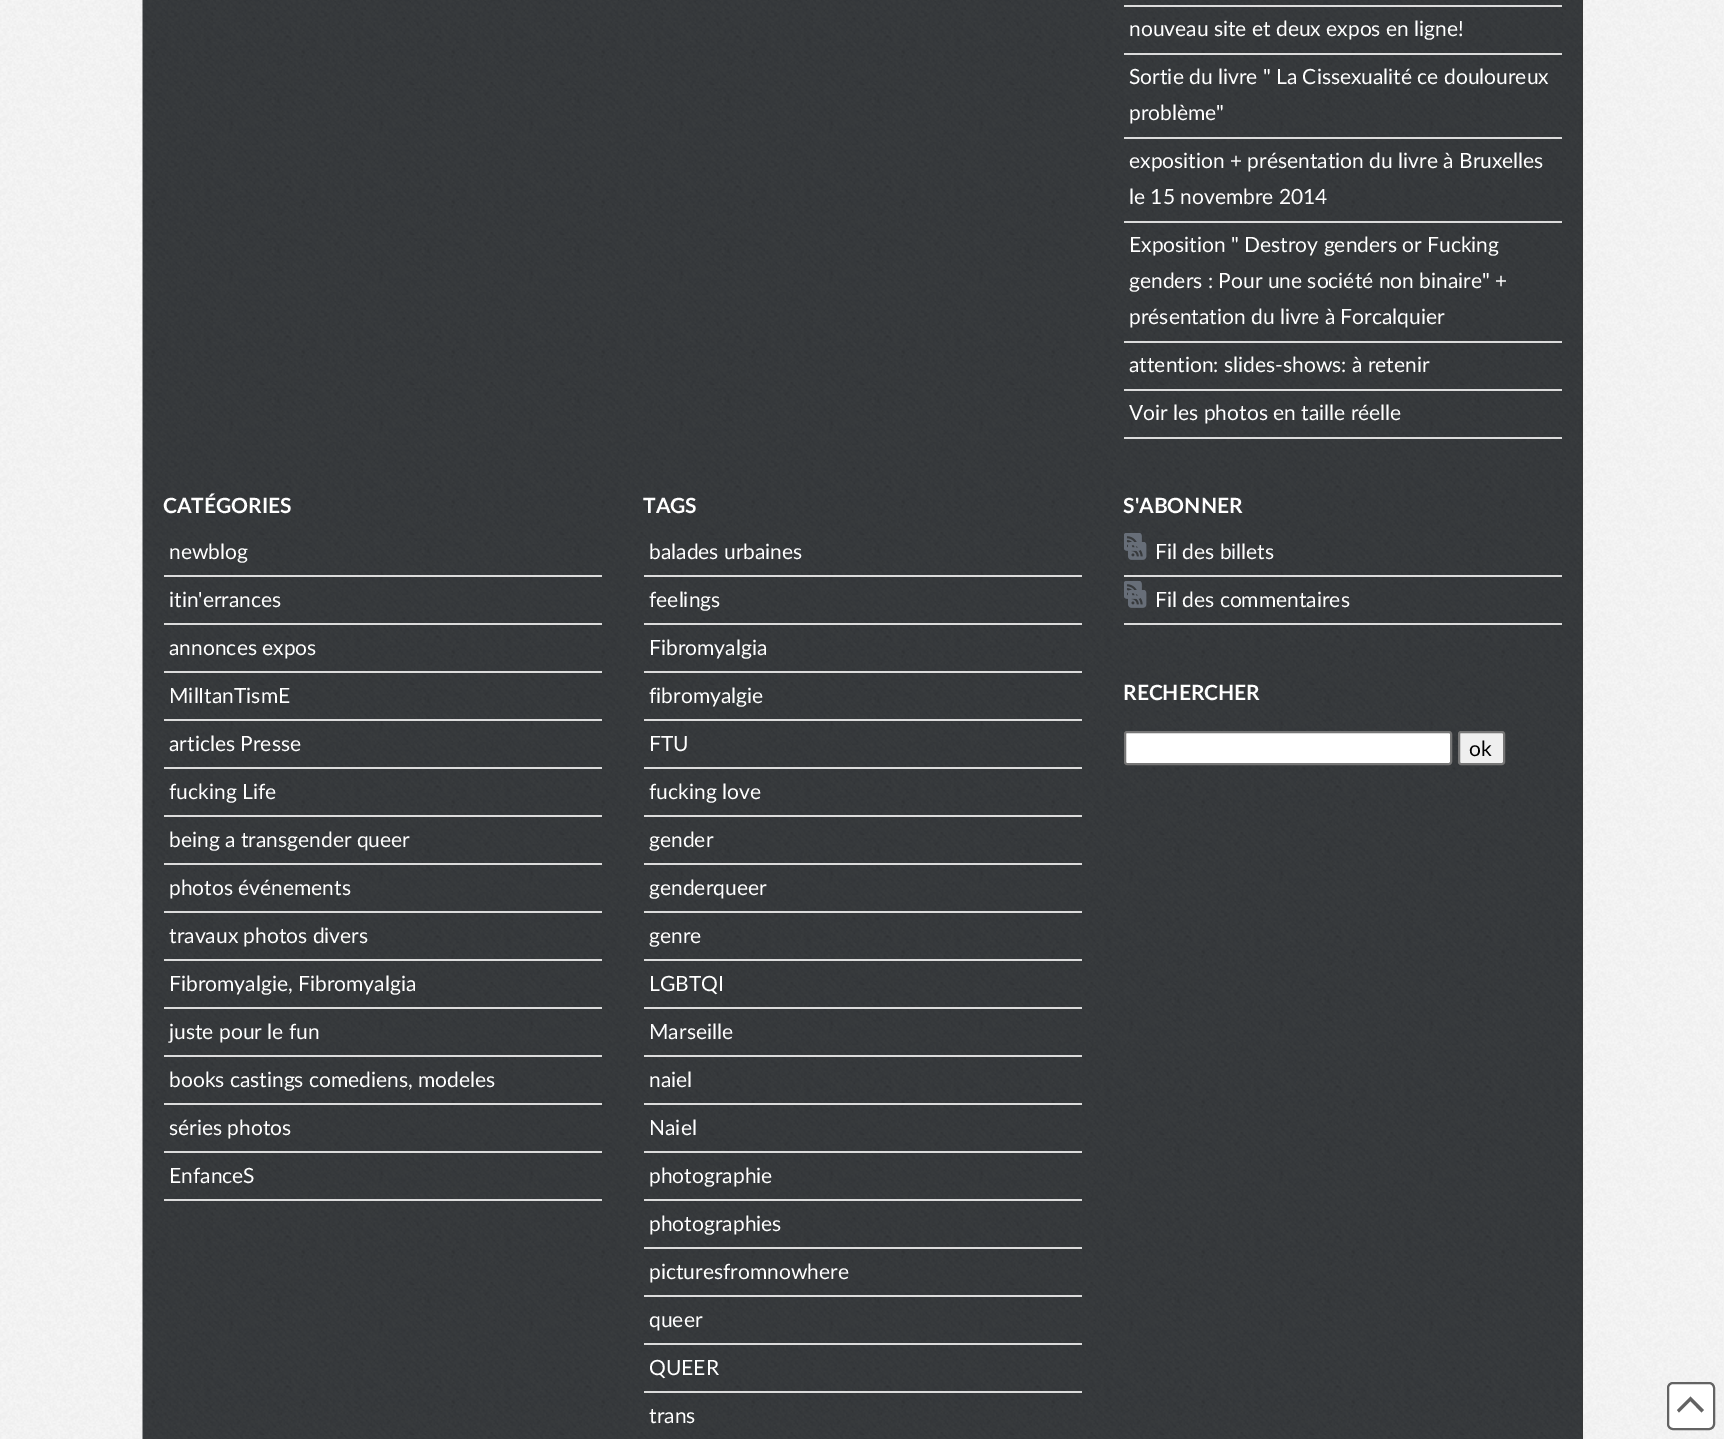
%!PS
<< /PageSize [1724 1439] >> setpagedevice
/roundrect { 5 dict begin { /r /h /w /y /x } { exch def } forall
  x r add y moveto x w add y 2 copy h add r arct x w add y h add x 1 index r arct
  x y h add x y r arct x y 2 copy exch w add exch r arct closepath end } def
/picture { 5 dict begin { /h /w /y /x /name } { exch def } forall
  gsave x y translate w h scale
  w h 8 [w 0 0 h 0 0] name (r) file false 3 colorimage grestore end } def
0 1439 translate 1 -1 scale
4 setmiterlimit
0.953 setgray
0 0 1724 1439 rectfill
(img1.rgb) 0 0 1723 1439 picture
0.216 setgray
1582 0 1 1439 rectfill
(img2.rgb) 142 0 1440 1439 picture
0.863 setgray
1124 5 438 2 rectfill
1124 53 438 2 rectfill
/Lato-Regular [21 0 0 -21 0 0] selectfont
1 setgray
1129 36 moveto (nouveau site et deux expos en ligne!) show
0.863 setgray
1124 137 438 2 rectfill
1 setgray
1129 84 moveto (Sortie du livre " La Cissexualité ce douloureux) show
1129 120 moveto (problème") show
0.863 setgray
1124 221 438 2 rectfill
1 setgray
1129 168 moveto (exposition + présentation du livre à Bruxelles) show
1129 204 moveto (le 15 novembre 2014) show
0.863 setgray
1124 341 438 2 rectfill
1 setgray
1129 252 moveto (Exposition " Destroy genders or Fucking) show
1129 288 moveto (genders : Pour une société non binaire" +) show
1129 324 moveto (présentation du livre à Forcalquier) show
0.863 setgray
1124 389 438 2 rectfill
1 setgray
1129 372 moveto (attention: slides-shows: à retenir) show
0.863 setgray
1124 437 438 2 rectfill
1 setgray
1129 420 moveto (Voir les photos en taille réelle) show
/Lato-Bold [21 0 0 -21 0 0] selectfont
163 513 moveto (CATÉGORIES) show
0.863 setgray
164 575 438 2 rectfill
/Lato-Regular [21 0 0 -21 0 0] selectfont
1 setgray
169 559 moveto (newblog) show
0.863 setgray
164 623 438 2 rectfill
1 setgray
169 607 moveto (itin'errances) show
0.863 setgray
164 671 438 2 rectfill
1 setgray
169 655 moveto (annonces expos) show
0.863 setgray
164 719 438 2 rectfill
1 setgray
169 703 moveto (MilItanTismE) show
0.863 setgray
164 767 438 2 rectfill
1 setgray
169 751 moveto (articles Presse) show
0.863 setgray
164 815 438 2 rectfill
1 setgray
169 799 moveto (fucking Life) show
0.863 setgray
164 863 438 2 rectfill
1 setgray
169 847 moveto (being a transgender queer) show
0.863 setgray
164 911 438 2 rectfill
1 setgray
169 895 moveto (photos événements) show
0.863 setgray
164 959 438 2 rectfill
1 setgray
169 943 moveto (travaux photos divers) show
0.863 setgray
164 1007 438 2 rectfill
1 setgray
169 991 moveto (Fibromyalgie, Fibromyalgia) show
0.863 setgray
164 1055 438 2 rectfill
1 setgray
169 1039 moveto (juste pour le fun) show
0.863 setgray
164 1103 438 2 rectfill
1 setgray
169 1087 moveto (books castings comediens, modeles) show
0.863 setgray
164 1151 438 2 rectfill
1 setgray
169 1135 moveto (séries photos) show
0.863 setgray
164 1199 438 2 rectfill
1 setgray
169 1183 moveto (EnfanceS) show
/Lato-Bold [21 0 0 -21 0 0] selectfont
643 513 moveto (TAGS) show
0.863 setgray
644 575 438 2 rectfill
/Lato-Regular [21 0 0 -21 0 0] selectfont
1 setgray
649 559 moveto (balades urbaines) show
0.863 setgray
644 623 438 2 rectfill
1 setgray
649 607 moveto (feelings) show
0.863 setgray
644 671 438 2 rectfill
1 setgray
649 655 moveto (Fibromyalgia) show
0.863 setgray
644 719 438 2 rectfill
1 setgray
649 703 moveto (fibromyalgie) show
0.863 setgray
644 767 438 2 rectfill
1 setgray
649 751 moveto (FTU) show
0.863 setgray
644 815 438 2 rectfill
1 setgray
649 799 moveto (fucking love) show
0.863 setgray
644 863 438 2 rectfill
1 setgray
649 847 moveto (gender) show
0.863 setgray
644 911 438 2 rectfill
1 setgray
649 895 moveto (genderqueer) show
0.863 setgray
644 959 438 2 rectfill
1 setgray
649 943 moveto (genre) show
0.863 setgray
644 1007 438 2 rectfill
1 setgray
649 991 moveto (LGBTQI) show
0.863 setgray
644 1055 438 2 rectfill
1 setgray
649 1039 moveto (Marseille) show
0.863 setgray
644 1103 438 2 rectfill
1 setgray
649 1087 moveto (naiel) show
0.863 setgray
644 1151 438 2 rectfill
1 setgray
649 1135 moveto (Naiel) show
0.863 setgray
644 1199 438 2 rectfill
1 setgray
649 1183 moveto (photographie) show
0.863 setgray
644 1247 438 2 rectfill
1 setgray
649 1231 moveto (photographies) show
0.863 setgray
644 1295 438 2 rectfill
1 setgray
649 1279 moveto (picturesfromnowhere) show
0.863 setgray
644 1343 438 2 rectfill
1 setgray
649 1327 moveto (queer) show
0.863 setgray
644 1391 438 2 rectfill
1 setgray
649 1375 moveto (QUEER) show
649 1423 moveto (trans) show
/Lato-Bold [21 0 0 -21 0 0] selectfont
1123 513 moveto (S'ABONNER) show
0.863 setgray
1124 575 438 2 rectfill
(img3.rgb) 1124 533 23 27 picture
/Lato-Regular [21 0 0 -21 0 0] selectfont
1 setgray
1155 559 moveto (Fil des billets) show
0.863 setgray
1124 623 438 2 rectfill
(img4.rgb) 1124 581 23 27 picture
1 setgray
1155 607 moveto (Fil des commentaires) show
/Lato-Bold [21 0 0 -21 0 0] selectfont
1123 700 moveto (RECHERCHER) show
1125 732 326 32 2 roundrect gsave fill grestore
0.463 setgray
2 setlinewidth
stroke
0.937 setgray
1459 732 45 32 2 roundrect gsave fill grestore
0.463 setgray
stroke
/Lato-Regular [21 0 0 -21 0 0] selectfont
0 setgray
1469 756 moveto (ok) show
1 setgray
1668 1383 46 46 5 roundrect gsave fill grestore
0.388 setgray
stroke
newpath 1704 1410 moveto 1701.5 1412.5 lineto 1690.5 1401 lineto 1679 1412.5 lineto 1677 1410 lineto 1690.5 1396.5 lineto closepath fill
showpage
